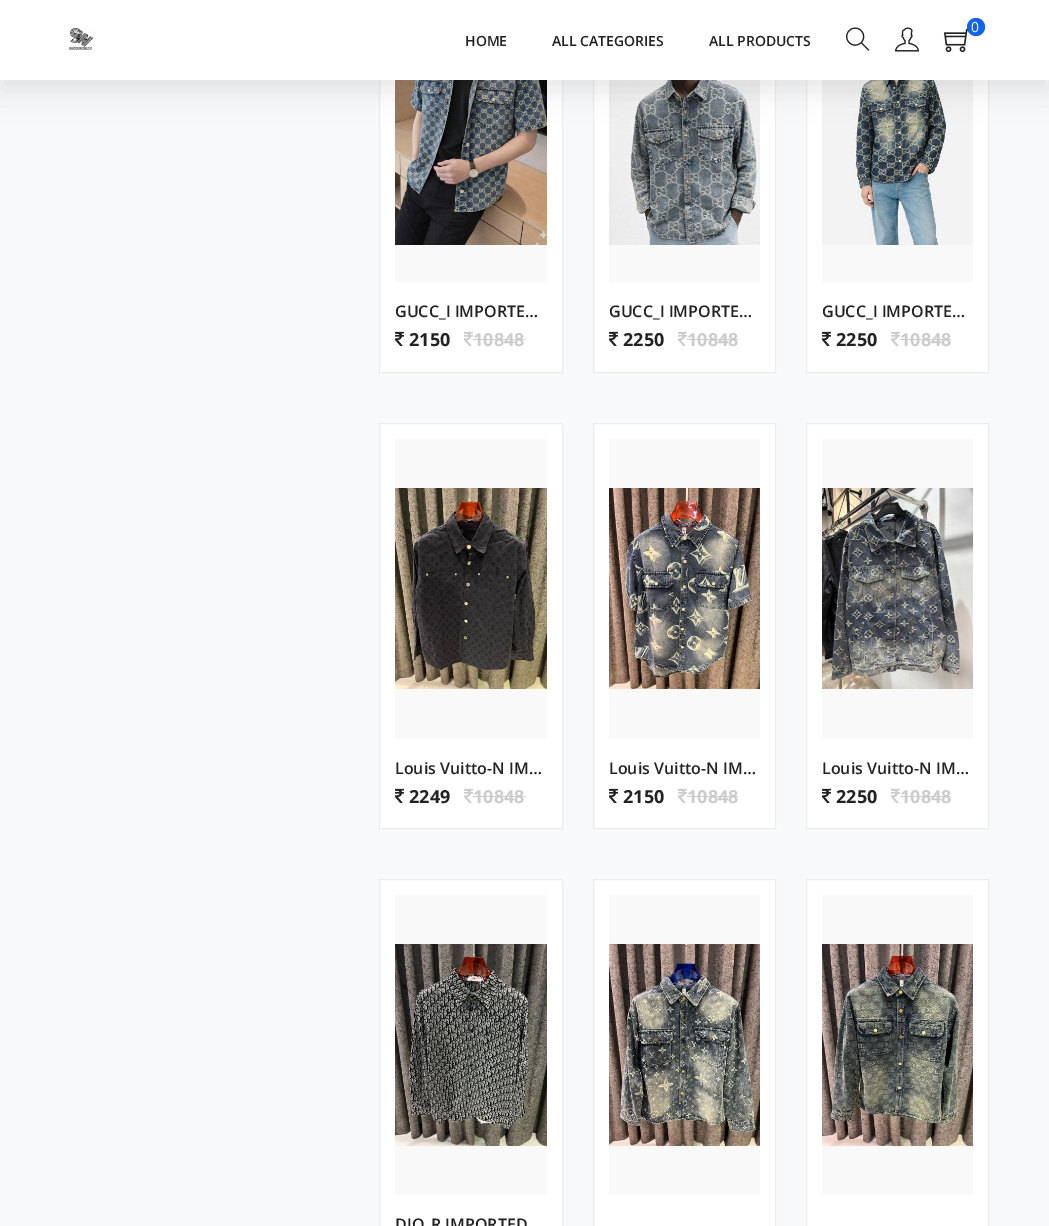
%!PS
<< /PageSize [1049 1226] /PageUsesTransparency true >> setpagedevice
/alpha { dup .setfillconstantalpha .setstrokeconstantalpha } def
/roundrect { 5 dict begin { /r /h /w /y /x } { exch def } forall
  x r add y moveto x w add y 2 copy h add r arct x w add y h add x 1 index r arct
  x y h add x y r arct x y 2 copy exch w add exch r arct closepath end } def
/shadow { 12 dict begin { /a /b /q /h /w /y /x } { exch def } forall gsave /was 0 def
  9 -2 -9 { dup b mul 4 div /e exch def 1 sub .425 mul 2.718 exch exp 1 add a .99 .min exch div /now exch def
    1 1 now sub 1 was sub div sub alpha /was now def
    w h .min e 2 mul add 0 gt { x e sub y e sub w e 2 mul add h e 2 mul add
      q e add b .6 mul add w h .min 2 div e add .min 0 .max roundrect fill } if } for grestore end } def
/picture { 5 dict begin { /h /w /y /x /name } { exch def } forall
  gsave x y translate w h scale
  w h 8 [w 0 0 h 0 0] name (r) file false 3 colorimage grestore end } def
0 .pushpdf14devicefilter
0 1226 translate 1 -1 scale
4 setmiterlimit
0.973 0.976 0.98 setrgbcolor
0 0 1049 1226 rectfill
1 setgray
380 80 182 292 rectfill
0.925 setgray
379.5 -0.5 183 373 rectstroke
(img5.rgb) 395 80 152 165 picture
1 setgray
594 80 181 292 rectfill
0.925 setgray
593.5 -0.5 182 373 rectstroke
(img8.rgb) 609 80 151 165 picture
1 setgray
807 80 181 292 rectfill
0.925 setgray
806.5 -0.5 182 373 rectstroke
(img9.rgb) 822 80 151 165 picture
0 setgray
0 10 1049 80 0 15 0.1 shadow
1 setgray
0 0 1049 80 rectfill
(img1.rgb) 69 28 25 22 picture
(img2.rgb) 846 27 24 24 picture
(img3.rgb) 895 27 24 25 picture
(img4.rgb) 943 29 25 24 picture
0.075 0.392 0.914 setrgbcolor
newpath 976 27 9 0 360 arc closepath fill
/OpenSans-Regular [14 0 0 -14 0 0] selectfont
1 setgray
971 32 moveto (0) show
/OpenSans-SemiBold [14 0 0 -14 0 0] selectfont
0.133 setgray
465 46 moveto (HOME) show
552 46 moveto (ALL CATEGORIES) show
709 46 moveto (ALL PRODUCTS) show
0.976 setgray
395 245 152 37 rectfill
/OpenSans-SemiBold [16 0 0 -16 0 0] selectfont
0.133 setgray
395 317 moveto (GUCC_I IMPORTE…) show
(img6.rgb) 395 331 9 15 picture
/OpenSans-Bold [18 0 0 -18 0 0] selectfont
409 346 moveto (2150) show
(img7.rgb) 464 331 9 15 picture
0.8 setgray
473 346 moveto (10848) show
473 339 52 1 rectfill
0.976 setgray
609 245 151 37 rectfill
/OpenSans-SemiBold [16 0 0 -16 0 0] selectfont
0.133 setgray
609 317 moveto (GUCC_I IMPORTE…) show
(img6.rgb) 609 331 9 15 picture
/OpenSans-Bold [18 0 0 -18 0 0] selectfont
623 346 moveto (2250) show
(img7.rgb) 678 331 9 15 picture
0.8 setgray
687 346 moveto (10848) show
687 339 51 1 rectfill
0.976 setgray
822 245 151 37 rectfill
/OpenSans-SemiBold [16 0 0 -16 0 0] selectfont
0.133 setgray
822 317 moveto (GUCC_I IMPORTE…) show
(img6.rgb) 822 331 9 15 picture
/OpenSans-Bold [18 0 0 -18 0 0] selectfont
836 346 moveto (2250) show
(img7.rgb) 891 331 9 15 picture
0.8 setgray
900 346 moveto (10848) show
900 339 51 1 rectfill
1 setgray
newpath 379.5 423.5 moveto 562.5 423.5 lineto 562.5 828.5 lineto 379.5 828.5 lineto closepath gsave fill grestore
0.925 setgray
stroke
0.976 setgray
395 439 152 300 rectfill
(img10.rgb) 395 488 152 201 picture
/OpenSans-SemiBold [16 0 0 -16 0 0] selectfont
0.133 setgray
395 774 moveto (Louis Vuitto-N IM…) show
(img6.rgb) 395 788 9 15 picture
/OpenSans-Bold [18 0 0 -18 0 0] selectfont
409 803 moveto (2249) show
(img7.rgb) 464 788 9 15 picture
0.8 setgray
473 803 moveto (10848) show
473 796 52 1 rectfill
1 setgray
newpath 593.5 423.5 moveto 775.5 423.5 lineto 775.5 828.5 lineto 593.5 828.5 lineto closepath gsave fill grestore
0.925 setgray
stroke
0.976 setgray
609 439 151 300 rectfill
(img11.rgb) 609 488 151 201 picture
/OpenSans-SemiBold [16 0 0 -16 0 0] selectfont
0.133 setgray
609 774 moveto (Louis Vuitto-N IM…) show
(img6.rgb) 609 788 9 15 picture
/OpenSans-Bold [18 0 0 -18 0 0] selectfont
623 803 moveto (2150) show
(img7.rgb) 678 788 9 15 picture
0.8 setgray
687 803 moveto (10848) show
687 796 51 1 rectfill
1 setgray
newpath 806.5 423.5 moveto 988.5 423.5 lineto 988.5 828.5 lineto 806.5 828.5 lineto closepath gsave fill grestore
0.925 setgray
stroke
0.976 setgray
822 439 151 300 rectfill
(img12.rgb) 822 488 151 201 picture
/OpenSans-SemiBold [16 0 0 -16 0 0] selectfont
0.133 setgray
822 774 moveto (Louis Vuitto-N IM…) show
(img6.rgb) 822 788 9 15 picture
/OpenSans-Bold [18 0 0 -18 0 0] selectfont
836 803 moveto (2250) show
(img7.rgb) 891 788 9 15 picture
0.8 setgray
900 803 moveto (10848) show
900 796 51 1 rectfill
1 setgray
newpath 379.5 879.5 moveto 562.5 879.5 lineto 562.5 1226.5 lineto 379.5 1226.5 lineto closepath gsave fill grestore
0.925 setgray
stroke
0.976 setgray
395 895 152 300 rectfill
(img13.rgb) 395 944 152 202 picture
/OpenSans-SemiBold [16 0 0 -16 0 0] selectfont
0.133 setgray
395 1230 moveto (DIO_R IMPORTED) show
1 setgray
newpath 593.5 879.5 moveto 775.5 879.5 lineto 775.5 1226.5 lineto 593.5 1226.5 lineto closepath gsave fill grestore
0.925 setgray
stroke
0.976 setgray
609 895 151 300 rectfill
(img14.rgb) 609 944 151 202 picture
1 setgray
newpath 806.5 879.5 moveto 988.5 879.5 lineto 988.5 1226.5 lineto 806.5 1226.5 lineto closepath gsave fill grestore
0.925 setgray
stroke
0.976 setgray
822 895 151 300 rectfill
(img15.rgb) 822 944 151 202 picture
.poppdf14devicefilter showpage
